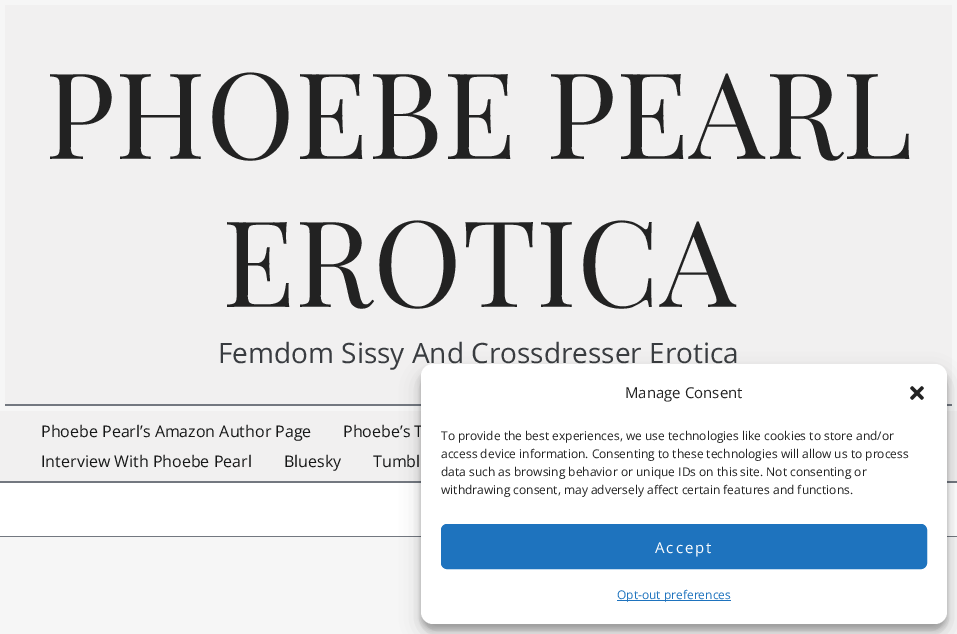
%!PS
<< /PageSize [957 634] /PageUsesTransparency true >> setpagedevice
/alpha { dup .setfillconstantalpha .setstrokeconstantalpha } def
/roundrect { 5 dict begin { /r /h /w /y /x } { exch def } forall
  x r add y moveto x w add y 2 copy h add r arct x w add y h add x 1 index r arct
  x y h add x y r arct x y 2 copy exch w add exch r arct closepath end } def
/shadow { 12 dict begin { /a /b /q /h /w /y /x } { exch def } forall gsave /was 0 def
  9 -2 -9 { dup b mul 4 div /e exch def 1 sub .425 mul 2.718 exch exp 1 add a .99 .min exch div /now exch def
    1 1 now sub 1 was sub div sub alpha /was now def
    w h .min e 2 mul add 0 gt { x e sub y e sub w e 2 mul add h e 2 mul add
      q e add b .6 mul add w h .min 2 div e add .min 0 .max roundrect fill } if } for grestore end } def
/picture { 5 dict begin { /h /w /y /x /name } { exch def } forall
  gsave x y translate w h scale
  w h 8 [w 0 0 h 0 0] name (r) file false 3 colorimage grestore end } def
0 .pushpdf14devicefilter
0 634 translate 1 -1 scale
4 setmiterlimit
0.965 setgray
0 0 957 634 rectfill
0.945 0.941 0.941 setrgbcolor
5 5 947 399 rectfill
0.451 0.471 0.502 setrgbcolor
5 404 947 2 rectfill
/PlayfairDisplay-Regular [120 0 0 -120 0 0] selectfont
0.133 setgray
45 159 moveto (PHOEBE PEARL) show
222 307 moveto (EROTICA) show
/OpenSans-Regular [28 0 0 -28 0 0] selectfont
0.224 0.235 0.251 setrgbcolor
218 363 moveto (Femdom Sissy And Crossdresser Erotica) show
0.945 0.941 0.941 setrgbcolor
0 411 957 70 rectfill
0.451 0.471 0.502 setrgbcolor
0 481 957 2 rectfill
/OpenSans-Regular [16 0 0 -16 0 0] selectfont
0.082 0.086 0.086 setrgbcolor
41 437 moveto (Phoebe Pearl’s Amazon Author Page) show
343 437 moveto (Phoebe’s T) show
41 467 moveto (Interview With Phoebe Pearl) show
284 467 moveto (Bluesky) show
373 467 moveto (Tumbl) show
1 setgray
0 483 957 53 rectfill
0.451 0.471 0.502 setrgbcolor
0 536 957 1 rectfill
0 setgray
421 370 526 260 12 3 0.23 shadow
421 374 526 260 12 10 0.19 shadow
1 setgray
421 364 526 260 12 roundrect fill
/OpenSans-Regular [15 0 0 -15 0 0] selectfont
0.133 setgray
625 398 moveto (Manage Consent) show
(img1.rgb) 910 386 14 14 picture
/OpenSans-Regular [12 0 0 -12 0 0] selectfont
441 440 moveto (To provide the best experiences, we use technologies like cookies to store and/or) show
441 458 moveto (access device information. Consenting to these technologies will allow us to process) show
441 476 moveto (data such as browsing behavior or unique IDs on this site. Not consenting or) show
441 494 moveto (withdrawing consent, may adversely affect certain features and functions.) show
0.118 0.451 0.745 setrgbcolor
441.5 524.5 485 44 5.5 roundrect gsave fill grestore
stroke
/OpenSans-Regular [15 0 0 -15 0 0] selectfont
1 setgray
655 553 moveto 2 0 (Accept) ashow
0.118 0.451 0.745 setrgbcolor
617 600 114 1 rectfill
/OpenSans-Regular [12 0 0 -12 0 0] selectfont
617 599 moveto (Opt-out preferences) show
.poppdf14devicefilter showpage
